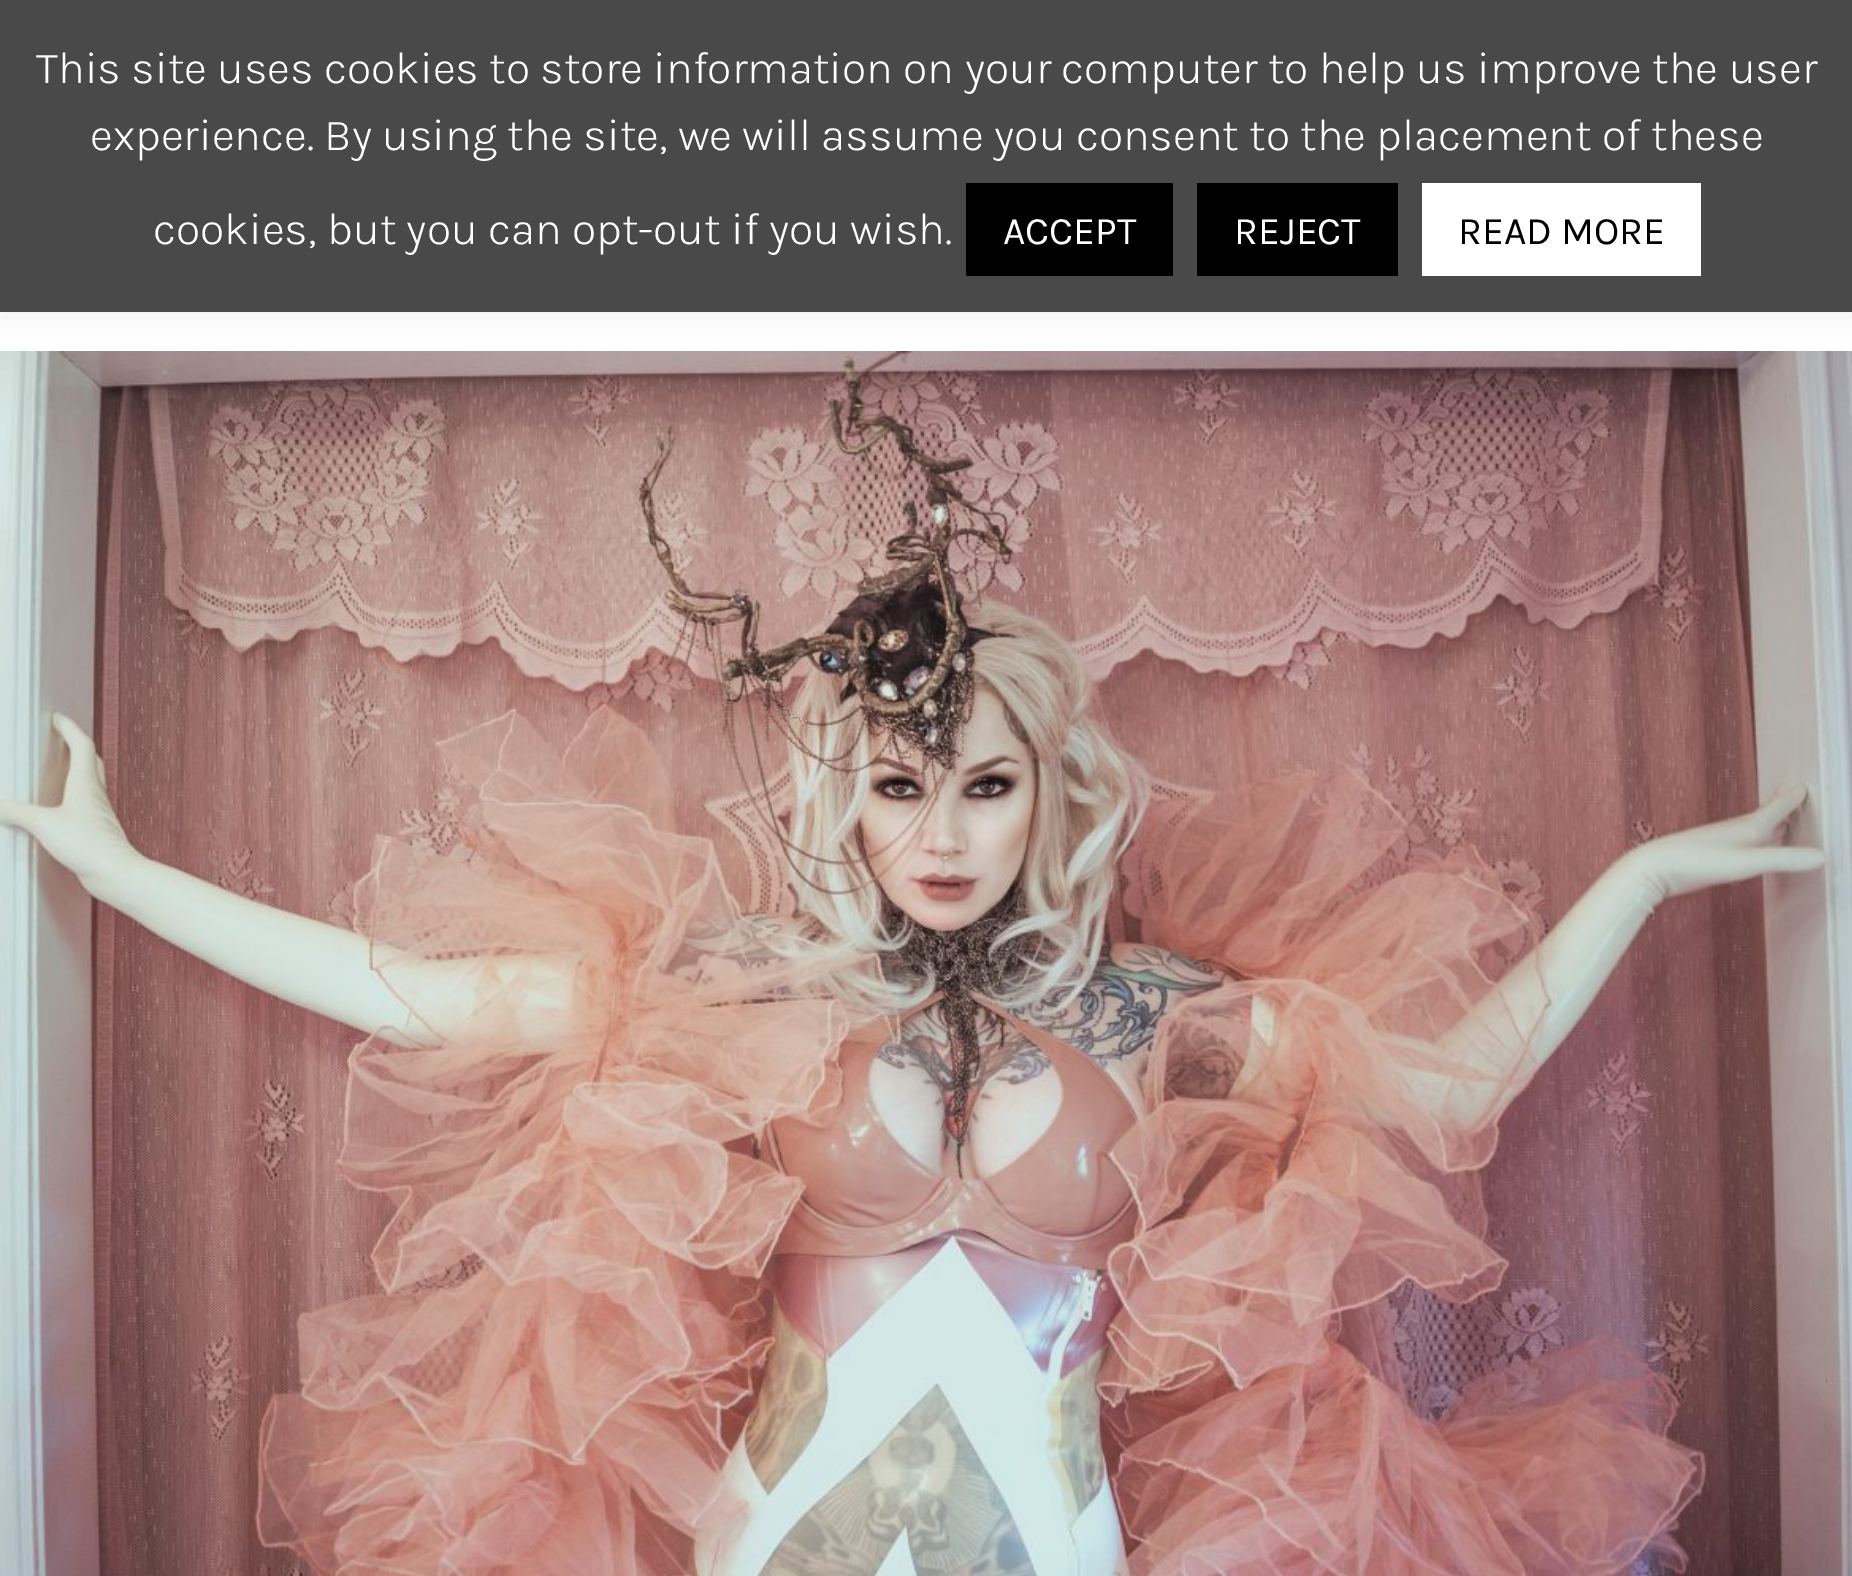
%!PS
<< /PageSize [1852 1576] /PageUsesTransparency true >> setpagedevice
/alpha { dup .setfillconstantalpha .setstrokeconstantalpha } def
/roundrect { 5 dict begin { /r /h /w /y /x } { exch def } forall
  x r add y moveto x w add y 2 copy h add r arct x w add y h add x 1 index r arct
  x y h add x y r arct x y 2 copy exch w add exch r arct closepath end } def
/shadow { 12 dict begin { /a /b /q /h /w /y /x } { exch def } forall gsave /was 0 def
  9 -2 -9 { dup b mul 4 div /e exch def 1 sub .425 mul 2.718 exch exp 1 add a .99 .min exch div /now exch def
    1 1 now sub 1 was sub div sub alpha /was now def
    w h .min e 2 mul add 0 gt { x e sub y e sub w e 2 mul add h e 2 mul add
      q e add b .6 mul add w h .min 2 div e add .min 0 .max roundrect fill } if } for grestore end } def
/picture { 5 dict begin { /h /w /y /x /name } { exch def } forall
  gsave x y translate w h scale
  w h 8 [w 0 0 h 0 0] name (r) file false 3 colorimage grestore end } def
0 .pushpdf14devicefilter
0 1576 translate 1 -1 scale
4 setmiterlimit
1 setgray
0 0 1852 1576 rectfill
(img1.rgb) 0 351 1852 1225 picture
0.675 0.671 0.671 setrgbcolor
0 -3 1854 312 0 15 0.3 shadow
0.286 setgray
0 0 1852 312 rectfill
/Karla-Light [45 0 0 -45 0 0] selectfont
1 setgray
36 83 moveto (This site uses cookies to store information on your computer to help us improve the user) show
90 150 moveto (experience. By using the site, we will assume you consent to the placement of these) show
153 244 moveto (cookies, but you can opt-out if you wish.) show
0 setgray
966 183 207 93 rectfill
/Karla-Regular [39 0 0 -39 0 0] selectfont
1 setgray
1003 244 moveto (ACCEPT) show
0 setgray
1197 183 201 93 rectfill
1 setgray
1234 244 moveto (REJECT) show
1422 183 279 93 rectfill
0 setgray
1458 244 moveto (READ MORE) show
.poppdf14devicefilter showpage
